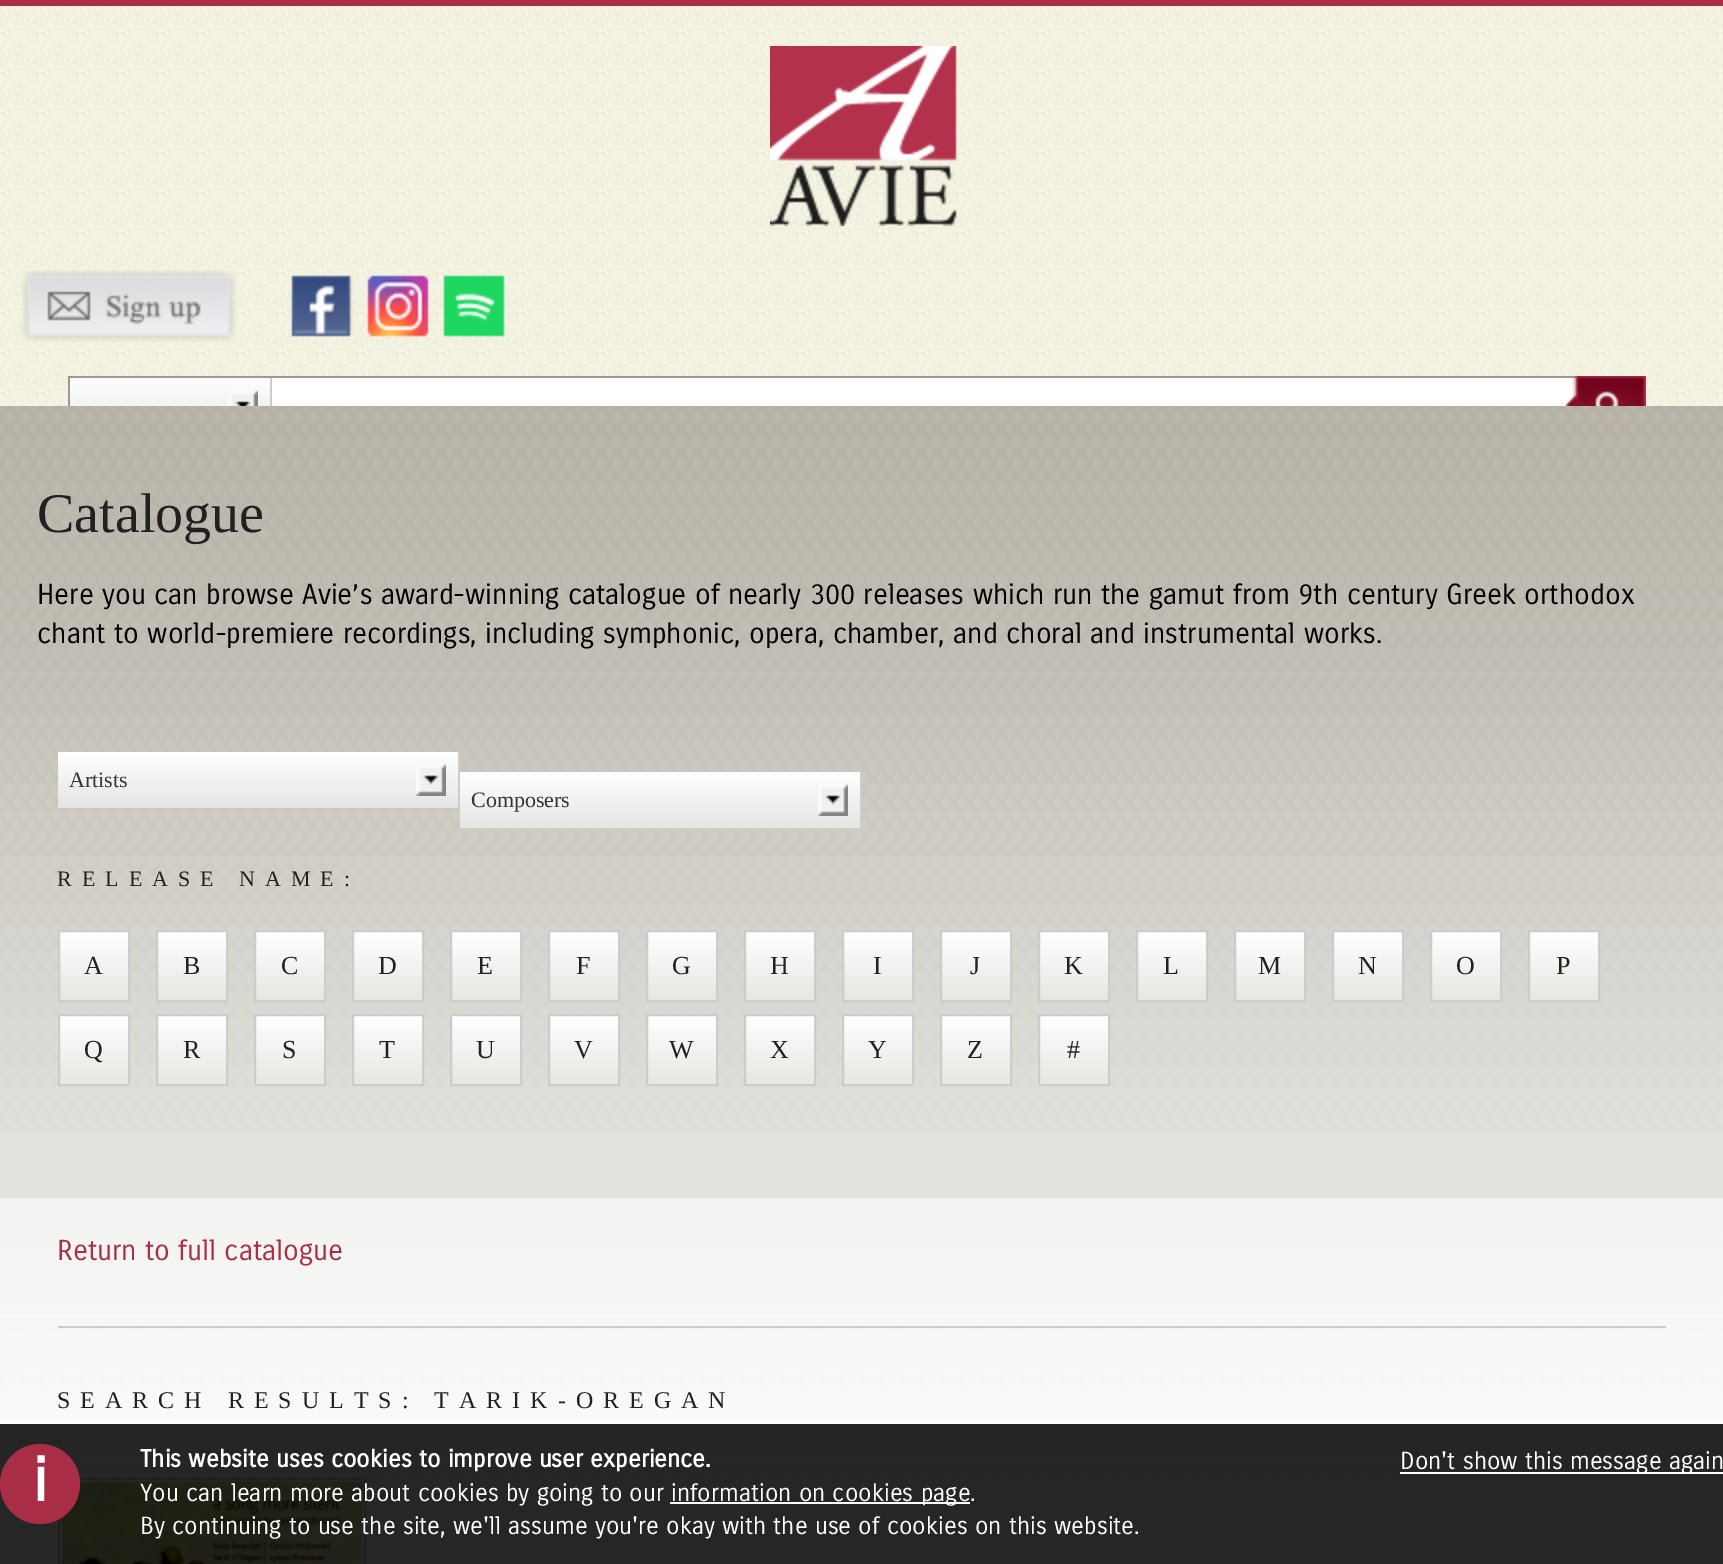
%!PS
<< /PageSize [1723 1564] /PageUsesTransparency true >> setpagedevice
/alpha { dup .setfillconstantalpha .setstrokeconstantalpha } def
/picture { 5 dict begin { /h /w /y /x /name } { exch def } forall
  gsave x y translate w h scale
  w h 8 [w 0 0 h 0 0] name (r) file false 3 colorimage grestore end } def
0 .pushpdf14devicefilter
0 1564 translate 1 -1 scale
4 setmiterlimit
1 setgray
0 0 1723 1564 rectfill
(img1.rgb) 0 6 1723 400 picture
0.667 0.184 0.267 setrgbcolor
0 0 1723 6 rectfill
(img2.rgb) 770 46 187 180 picture
(img3.rgb) 22 270 214 72 picture
(img4.rgb) 291 275 62 62 picture
(img5.rgb) 367 275 62 62 picture
(img6.rgb) 443 275 62 62 picture
0.6 setgray
68 376 1508 2 rectfill
68 376 2 30 rectfill
gsave newpath 70 378 moveto 270 378 lineto 270 406 lineto 70 406 lineto closepath clip newpath
<< /ShadingType 2 /ColorSpace /DeviceRGB /Coords [170 378 170 434] /Extend [true true] /Function << /FunctionType 2 /Domain [0 1] /C0 [1 1 1] /C1 [0.898 0.898 0.898] /N 1 >> >> shfill grestore
0.8 setgray
270 378 2 28 rectfill
(img7.rgb) 228 390 30 16 picture
1 setgray
272 378 1300 28 rectfill
(img8.rgb) 1566 376 80 30 picture
0.886 0.882 0.859 setrgbcolor
0 1131 1723 67 rectfill
(img9.rgb) 0 406 1723 725 picture
/LiberationSerif-Regular [56 0 0 -56 0 0] selectfont
0.129 setgray
37 532 moveto (Catalogue) show
/CarroisGothic-Regular [28 0 0 -28 0 0] selectfont
0 setgray
37 604 moveto (Here you can browse Avie’s award-winning catalogue of nearly 300 releases which run the gamut from 9th century Greek orthodox) show
37 643 moveto (chant to world-premiere recordings, including symphonic, opera, chamber, and choral and instrumental works.) show
gsave newpath 58 752 moveto 458 752 lineto 458 808 lineto 58 808 lineto closepath clip newpath
<< /ShadingType 2 /ColorSpace /DeviceRGB /Coords [258 752 258 808] /Extend [true true] /Function << /FunctionType 2 /Domain [0 1] /C0 [1 1 1] /C1 [0.898 0.898 0.898] /N 1 >> >> shfill grestore
0.8 setgray
458 752 2 56 rectfill
(img10.rgb) 416 764 30 32 picture
/LiberationSerif-Regular [22 0 0 -22 0 0] selectfont
0.2 setgray
69 787 moveto (Artists) show
gsave newpath 460 772 moveto 860 772 lineto 860 828 lineto 460 828 lineto closepath clip newpath
<< /ShadingType 2 /ColorSpace /DeviceRGB /Coords [660 772 660 828] /Extend [true true] /Function << /FunctionType 2 /Domain [0 1] /C0 [1 1 1] /C1 [0.898 0.898 0.898] /N 1 >> >> shfill grestore
0.8 setgray
860 772 2 56 rectfill
(img10.rgb) 818 784 30 32 picture
0.2 setgray
471 807 moveto (Composers) show
0.129 setgray
57 886 moveto 10 0 (RELEASE NAME:) ashow
gsave newpath 60 932 moveto 128 932 lineto 128 1000 lineto 60 1000 lineto closepath clip newpath
<< /ShadingType 2 /ColorSpace /DeviceRGB /Coords [94 932 94 1000] /Extend [true true] /Function << /FunctionType 2 /Domain [0 1] /C0 [1 1 1] /C1 [0.902 0.906 0.886] /N 1 >> >> shfill grestore
0.8 setgray
2 setlinewidth
59 931 70 70 rectstroke
/LiberationSerif-Regular [26 0 0 -26 0 0] selectfont
0.129 setgray
84 974 moveto (A) show
gsave newpath 158 932 moveto 226 932 lineto 226 1000 lineto 158 1000 lineto closepath clip newpath
<< /ShadingType 2 /ColorSpace /DeviceRGB /Coords [192 932 192 1000] /Extend [true true] /Function << /FunctionType 2 /Domain [0 1] /C0 [1 1 1] /C1 [0.902 0.906 0.886] /N 1 >> >> shfill grestore
0.8 setgray
157 931 70 70 rectstroke
0.129 setgray
183 974 moveto (B) show
gsave newpath 256 932 moveto 324 932 lineto 324 1000 lineto 256 1000 lineto closepath clip newpath
<< /ShadingType 2 /ColorSpace /DeviceRGB /Coords [290 932 290 1000] /Extend [true true] /Function << /FunctionType 2 /Domain [0 1] /C0 [1 1 1] /C1 [0.902 0.906 0.886] /N 1 >> >> shfill grestore
0.8 setgray
255 931 70 70 rectstroke
0.129 setgray
281 974 moveto (C) show
gsave newpath 354 932 moveto 422 932 lineto 422 1000 lineto 354 1000 lineto closepath clip newpath
<< /ShadingType 2 /ColorSpace /DeviceRGB /Coords [388 932 388 1000] /Extend [true true] /Function << /FunctionType 2 /Domain [0 1] /C0 [1 1 1] /C1 [0.902 0.906 0.886] /N 1 >> >> shfill grestore
0.8 setgray
353 931 70 70 rectstroke
0.129 setgray
378 974 moveto (D) show
gsave newpath 452 932 moveto 520 932 lineto 520 1000 lineto 452 1000 lineto closepath clip newpath
<< /ShadingType 2 /ColorSpace /DeviceRGB /Coords [486 932 486 1000] /Extend [true true] /Function << /FunctionType 2 /Domain [0 1] /C0 [1 1 1] /C1 [0.902 0.906 0.886] /N 1 >> >> shfill grestore
0.8 setgray
451 931 70 70 rectstroke
0.129 setgray
477 974 moveto (E) show
gsave newpath 550 932 moveto 618 932 lineto 618 1000 lineto 550 1000 lineto closepath clip newpath
<< /ShadingType 2 /ColorSpace /DeviceRGB /Coords [584 932 584 1000] /Extend [true true] /Function << /FunctionType 2 /Domain [0 1] /C0 [1 1 1] /C1 [0.902 0.906 0.886] /N 1 >> >> shfill grestore
0.8 setgray
549 931 70 70 rectstroke
0.129 setgray
576 974 moveto (F) show
gsave newpath 648 932 moveto 716 932 lineto 716 1000 lineto 648 1000 lineto closepath clip newpath
<< /ShadingType 2 /ColorSpace /DeviceRGB /Coords [682 932 682 1000] /Extend [true true] /Function << /FunctionType 2 /Domain [0 1] /C0 [1 1 1] /C1 [0.902 0.906 0.886] /N 1 >> >> shfill grestore
0.8 setgray
647 931 70 70 rectstroke
0.129 setgray
672 974 moveto (G) show
gsave newpath 746 932 moveto 814 932 lineto 814 1000 lineto 746 1000 lineto closepath clip newpath
<< /ShadingType 2 /ColorSpace /DeviceRGB /Coords [780 932 780 1000] /Extend [true true] /Function << /FunctionType 2 /Domain [0 1] /C0 [1 1 1] /C1 [0.902 0.906 0.886] /N 1 >> >> shfill grestore
0.8 setgray
745 931 70 70 rectstroke
0.129 setgray
770 974 moveto (H) show
gsave newpath 844 932 moveto 912 932 lineto 912 1000 lineto 844 1000 lineto closepath clip newpath
<< /ShadingType 2 /ColorSpace /DeviceRGB /Coords [878 932 878 1000] /Extend [true true] /Function << /FunctionType 2 /Domain [0 1] /C0 [1 1 1] /C1 [0.902 0.906 0.886] /N 1 >> >> shfill grestore
0.8 setgray
843 931 70 70 rectstroke
0.129 setgray
873 974 moveto (I) show
gsave newpath 942 932 moveto 1010 932 lineto 1010 1000 lineto 942 1000 lineto closepath clip newpath
<< /ShadingType 2 /ColorSpace /DeviceRGB /Coords [976 932 976 1000] /Extend [true true] /Function << /FunctionType 2 /Domain [0 1] /C0 [1 1 1] /C1 [0.902 0.906 0.886] /N 1 >> >> shfill grestore
0.8 setgray
941 931 70 70 rectstroke
0.129 setgray
970 974 moveto (J) show
gsave newpath 1040 932 moveto 1108 932 lineto 1108 1000 lineto 1040 1000 lineto closepath clip newpath
<< /ShadingType 2 /ColorSpace /DeviceRGB /Coords [1074 932 1074 1000] /Extend [true true] /Function << /FunctionType 2 /Domain [0 1] /C0 [1 1 1] /C1 [0.902 0.906 0.886] /N 1 >> >> shfill grestore
0.8 setgray
1039 931 70 70 rectstroke
0.129 setgray
1064 974 moveto (K) show
gsave newpath 1138 932 moveto 1206 932 lineto 1206 1000 lineto 1138 1000 lineto closepath clip newpath
<< /ShadingType 2 /ColorSpace /DeviceRGB /Coords [1172 932 1172 1000] /Extend [true true] /Function << /FunctionType 2 /Domain [0 1] /C0 [1 1 1] /C1 [0.902 0.906 0.886] /N 1 >> >> shfill grestore
0.8 setgray
1137 931 70 70 rectstroke
0.129 setgray
1163 974 moveto (L) show
gsave newpath 1236 932 moveto 1304 932 lineto 1304 1000 lineto 1236 1000 lineto closepath clip newpath
<< /ShadingType 2 /ColorSpace /DeviceRGB /Coords [1270 932 1270 1000] /Extend [true true] /Function << /FunctionType 2 /Domain [0 1] /C0 [1 1 1] /C1 [0.902 0.906 0.886] /N 1 >> >> shfill grestore
0.8 setgray
1235 931 70 70 rectstroke
0.129 setgray
1258 974 moveto (M) show
gsave newpath 1334 932 moveto 1402 932 lineto 1402 1000 lineto 1334 1000 lineto closepath clip newpath
<< /ShadingType 2 /ColorSpace /DeviceRGB /Coords [1368 932 1368 1000] /Extend [true true] /Function << /FunctionType 2 /Domain [0 1] /C0 [1 1 1] /C1 [0.902 0.906 0.886] /N 1 >> >> shfill grestore
0.8 setgray
1333 931 70 70 rectstroke
0.129 setgray
1358 974 moveto (N) show
gsave newpath 1432 932 moveto 1500 932 lineto 1500 1000 lineto 1432 1000 lineto closepath clip newpath
<< /ShadingType 2 /ColorSpace /DeviceRGB /Coords [1466 932 1466 1000] /Extend [true true] /Function << /FunctionType 2 /Domain [0 1] /C0 [1 1 1] /C1 [0.902 0.906 0.886] /N 1 >> >> shfill grestore
0.8 setgray
1431 931 70 70 rectstroke
0.129 setgray
1456 974 moveto (O) show
gsave newpath 1530 932 moveto 1598 932 lineto 1598 1000 lineto 1530 1000 lineto closepath clip newpath
<< /ShadingType 2 /ColorSpace /DeviceRGB /Coords [1564 932 1564 1000] /Extend [true true] /Function << /FunctionType 2 /Domain [0 1] /C0 [1 1 1] /C1 [0.902 0.906 0.886] /N 1 >> >> shfill grestore
0.8 setgray
1529 931 70 70 rectstroke
0.129 setgray
1556 974 moveto (P) show
gsave newpath 60 1016 moveto 128 1016 lineto 128 1084 lineto 60 1084 lineto closepath clip newpath
<< /ShadingType 2 /ColorSpace /DeviceRGB /Coords [94 1016 94 1084] /Extend [true true] /Function << /FunctionType 2 /Domain [0 1] /C0 [1 1 1] /C1 [0.902 0.906 0.886] /N 1 >> >> shfill grestore
0.8 setgray
59 1015 70 70 rectstroke
0.129 setgray
84 1058 moveto (Q) show
gsave newpath 158 1016 moveto 226 1016 lineto 226 1084 lineto 158 1084 lineto closepath clip newpath
<< /ShadingType 2 /ColorSpace /DeviceRGB /Coords [192 1016 192 1084] /Extend [true true] /Function << /FunctionType 2 /Domain [0 1] /C0 [1 1 1] /C1 [0.902 0.906 0.886] /N 1 >> >> shfill grestore
0.8 setgray
157 1015 70 70 rectstroke
0.129 setgray
183 1058 moveto (R) show
gsave newpath 256 1016 moveto 324 1016 lineto 324 1084 lineto 256 1084 lineto closepath clip newpath
<< /ShadingType 2 /ColorSpace /DeviceRGB /Coords [290 1016 290 1084] /Extend [true true] /Function << /FunctionType 2 /Domain [0 1] /C0 [1 1 1] /C1 [0.902 0.906 0.886] /N 1 >> >> shfill grestore
0.8 setgray
255 1015 70 70 rectstroke
0.129 setgray
282 1058 moveto (S) show
gsave newpath 354 1016 moveto 422 1016 lineto 422 1084 lineto 354 1084 lineto closepath clip newpath
<< /ShadingType 2 /ColorSpace /DeviceRGB /Coords [388 1016 388 1084] /Extend [true true] /Function << /FunctionType 2 /Domain [0 1] /C0 [1 1 1] /C1 [0.902 0.906 0.886] /N 1 >> >> shfill grestore
0.8 setgray
353 1015 70 70 rectstroke
0.129 setgray
379 1058 moveto (T) show
gsave newpath 452 1016 moveto 520 1016 lineto 520 1084 lineto 452 1084 lineto closepath clip newpath
<< /ShadingType 2 /ColorSpace /DeviceRGB /Coords [486 1016 486 1084] /Extend [true true] /Function << /FunctionType 2 /Domain [0 1] /C0 [1 1 1] /C1 [0.902 0.906 0.886] /N 1 >> >> shfill grestore
0.8 setgray
451 1015 70 70 rectstroke
0.129 setgray
476 1058 moveto (U) show
gsave newpath 550 1016 moveto 618 1016 lineto 618 1084 lineto 550 1084 lineto closepath clip newpath
<< /ShadingType 2 /ColorSpace /DeviceRGB /Coords [584 1016 584 1084] /Extend [true true] /Function << /FunctionType 2 /Domain [0 1] /C0 [1 1 1] /C1 [0.902 0.906 0.886] /N 1 >> >> shfill grestore
0.8 setgray
549 1015 70 70 rectstroke
0.129 setgray
574 1058 moveto (V) show
gsave newpath 648 1016 moveto 716 1016 lineto 716 1084 lineto 648 1084 lineto closepath clip newpath
<< /ShadingType 2 /ColorSpace /DeviceRGB /Coords [682 1016 682 1084] /Extend [true true] /Function << /FunctionType 2 /Domain [0 1] /C0 [1 1 1] /C1 [0.902 0.906 0.886] /N 1 >> >> shfill grestore
0.8 setgray
647 1015 70 70 rectstroke
0.129 setgray
669 1058 moveto (W) show
gsave newpath 746 1016 moveto 814 1016 lineto 814 1084 lineto 746 1084 lineto closepath clip newpath
<< /ShadingType 2 /ColorSpace /DeviceRGB /Coords [780 1016 780 1084] /Extend [true true] /Function << /FunctionType 2 /Domain [0 1] /C0 [1 1 1] /C1 [0.902 0.906 0.886] /N 1 >> >> shfill grestore
0.8 setgray
745 1015 70 70 rectstroke
0.129 setgray
770 1058 moveto (X) show
gsave newpath 844 1016 moveto 912 1016 lineto 912 1084 lineto 844 1084 lineto closepath clip newpath
<< /ShadingType 2 /ColorSpace /DeviceRGB /Coords [878 1016 878 1084] /Extend [true true] /Function << /FunctionType 2 /Domain [0 1] /C0 [1 1 1] /C1 [0.902 0.906 0.886] /N 1 >> >> shfill grestore
0.8 setgray
843 1015 70 70 rectstroke
0.129 setgray
868 1058 moveto (Y) show
gsave newpath 942 1016 moveto 1010 1016 lineto 1010 1084 lineto 942 1084 lineto closepath clip newpath
<< /ShadingType 2 /ColorSpace /DeviceRGB /Coords [976 1016 976 1084] /Extend [true true] /Function << /FunctionType 2 /Domain [0 1] /C0 [1 1 1] /C1 [0.902 0.906 0.886] /N 1 >> >> shfill grestore
0.8 setgray
941 1015 70 70 rectstroke
0.129 setgray
967 1058 moveto (Z) show
gsave newpath 1040 1016 moveto 1108 1016 lineto 1108 1084 lineto 1040 1084 lineto closepath clip newpath
<< /ShadingType 2 /ColorSpace /DeviceRGB /Coords [1074 1016 1074 1084] /Extend [true true] /Function << /FunctionType 2 /Domain [0 1] /C0 [1 1 1] /C1 [0.902 0.906 0.886] /N 1 >> >> shfill grestore
0.8 setgray
1039 1015 70 70 rectstroke
0.129 setgray
1067 1058 moveto (#) show
(img11.rgb) 0 1198 1723 282 picture
/CarroisGothic-Regular [28 0 0 -28 0 0] selectfont
0.667 0.184 0.267 setrgbcolor
57 1260 moveto (Return to full catalogue) show
0.8 setgray
58 1326 1608 2 rectfill
/LiberationSerif-Regular [24 0 0 -24 0 0] selectfont
0.129 setgray
57 1408 moveto 10 0 (SEARCH RESULTS: TARIK-OREGAN) ashow
0.8 setgray
59 1479 306 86 rectstroke
(img12.rgb) 62 1482 300 82 picture
0.85 alpha
0 setgray
0 1424 1723 140 rectfill
1 alpha
1 setgray
0 1420 1723 4 rectfill
0.659 0.18 0.278 setrgbcolor
newpath 40 1484 40 0 360 arc closepath fill
/CarroisGothic-Bold [60 0 0 -60 0 0] selectfont
1 setgray
33 1501 moveto (i) show
/CarroisGothic-Bold [24 0 0 -24 0 0] selectfont
140 1467 moveto (This website uses cookies to improve user experience.) show
/CarroisGothic-Regular [24 0 0 -24 0 0] selectfont
140 1501 moveto (You can learn more about cookies by going to our) show
670 1502 300 2 rectfill
671 1501 moveto (information on cookies page.) show
140 1534 moveto (By continuing to use the site, we'll assume you're okay with the use of cookies on this website.) show
1400 1472 323 2 rectfill
1400 1469 moveto (Don't show this message again) show
.poppdf14devicefilter showpage
